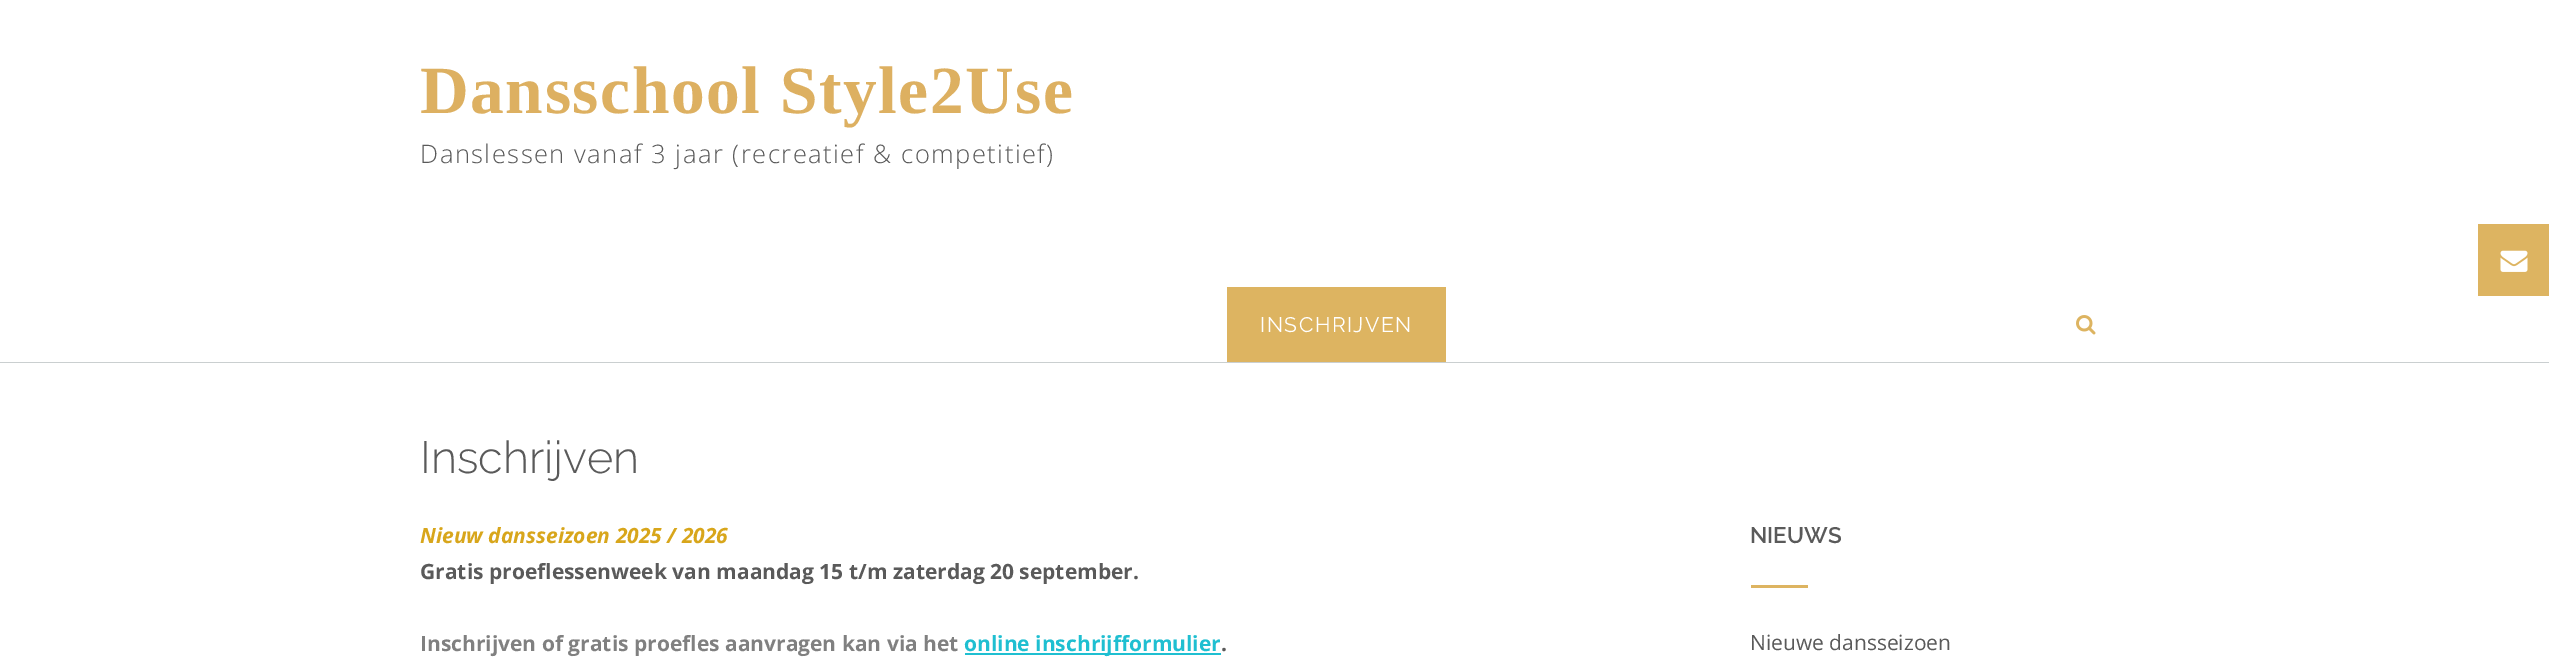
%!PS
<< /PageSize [2549 670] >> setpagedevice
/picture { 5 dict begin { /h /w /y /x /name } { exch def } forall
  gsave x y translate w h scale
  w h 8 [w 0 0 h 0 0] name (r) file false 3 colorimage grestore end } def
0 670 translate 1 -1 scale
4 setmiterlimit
1 setgray
0 0 2549 670 rectfill
0.792 0.812 0.816 setrgbcolor
0 362 2549 1 rectfill
/LiberationSerif-Bold [67.5 0 0 -67.5 0 0] selectfont
0.867 0.69 0.38 setrgbcolor
420 113 moveto 1.5 0 (Dansschool Style2Use) ashow
/OpenSans-Light [25.5 0 0 -25.5 0 0] selectfont
0.353 setgray
420 163 moveto 1.5 0 (Danslessen vanaf 3 jaar \(recreatief & competitief\)) ashow
0.867 0.706 0.38 setrgbcolor
1227 287 219 75 rectfill
/Raleway-Regular [21 0 0 -21 0 0] selectfont
1 setgray
1260 332 moveto 1.5 0 (INSCHRIJVEN) ashow
(img1.rgb) 2076 315 20 20 picture
0.867 0.706 0.38 setrgbcolor
2478 224 71 72 rectfill
(img2.rgb) 2500 250 28 22 picture
/Raleway-Light [45 0 0 -45 0 0] selectfont
0.353 setgray
420 473 moveto (Inschrijven) show
/OpenSans-BoldItalic [21 0 0 -21 0 0] selectfont
0.847 0.651 0.106 setrgbcolor
420 543 moveto (Nieuw dansseizoen 2025 / 2026) show
/OpenSans-Bold [21 0 0 -21 0 0] selectfont
0.353 setgray
420 579 moveto (Gratis proeflessenweek van maandag 15 t/m zaterdag 20 september.) show
0.502 setgray
420 651 moveto (Inschrijven of gratis proefles aanvragen kan via het) show
0.122 0.749 0.82 setrgbcolor
965 653 256 2 rectfill
964 651 moveto (online inschrijfformulier) show
0.353 setgray
1221 651 moveto (.) show
/Raleway-SemiBold [22.5 0 0 -22.5 0 0] selectfont
1750 543 moveto (NIEUWS) show
0.867 0.706 0.38 setrgbcolor
1751 585 57 3 rectfill
/OpenSans-Regular [21 0 0 -21 0 0] selectfont
0.353 setgray
1750 650 moveto (Nieuwe dansseizoen) show
showpage
